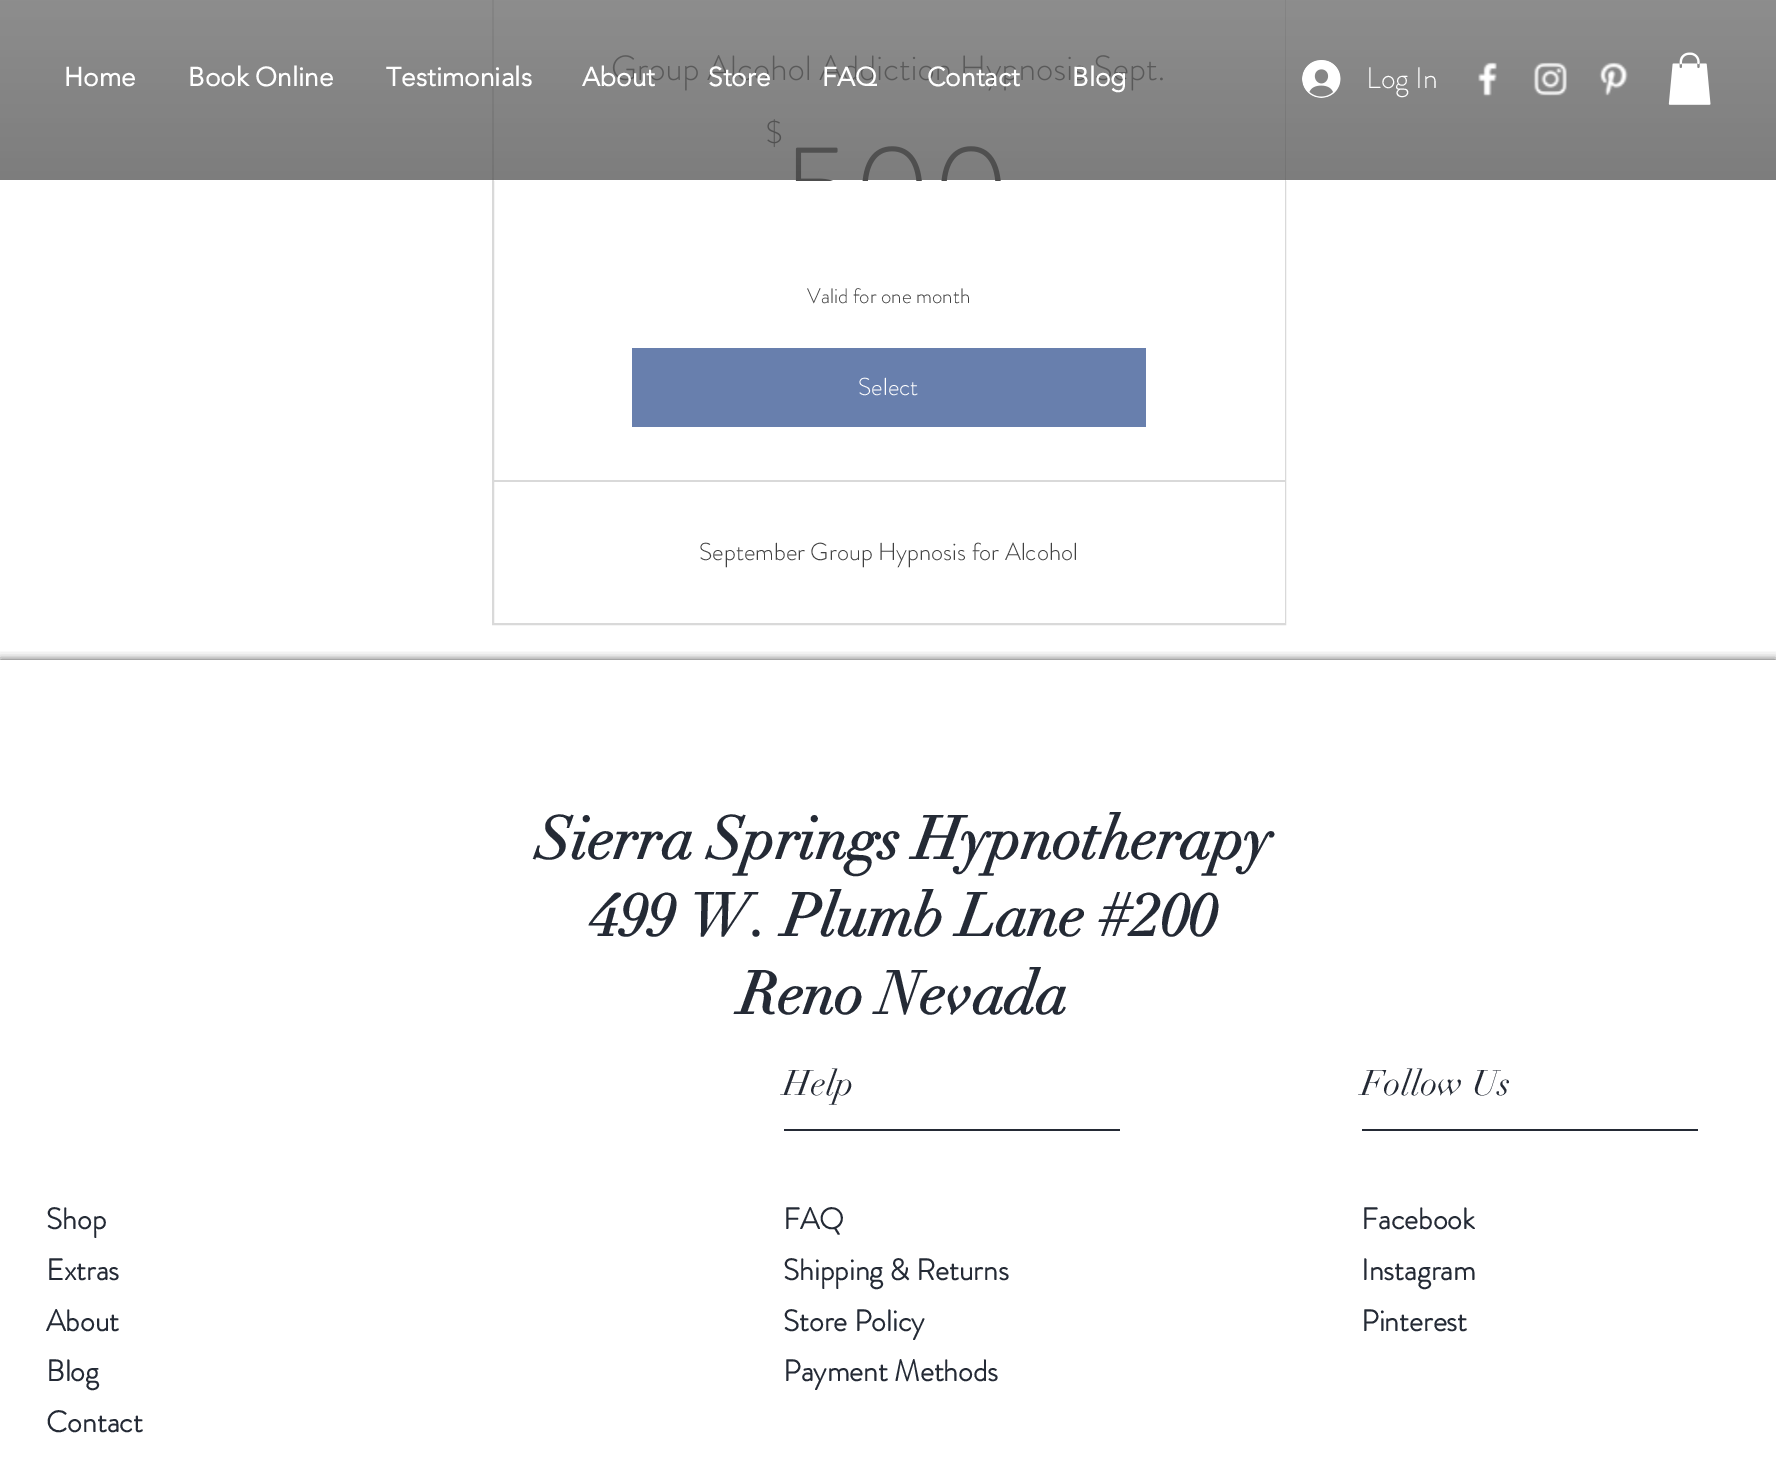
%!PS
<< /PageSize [1776 1472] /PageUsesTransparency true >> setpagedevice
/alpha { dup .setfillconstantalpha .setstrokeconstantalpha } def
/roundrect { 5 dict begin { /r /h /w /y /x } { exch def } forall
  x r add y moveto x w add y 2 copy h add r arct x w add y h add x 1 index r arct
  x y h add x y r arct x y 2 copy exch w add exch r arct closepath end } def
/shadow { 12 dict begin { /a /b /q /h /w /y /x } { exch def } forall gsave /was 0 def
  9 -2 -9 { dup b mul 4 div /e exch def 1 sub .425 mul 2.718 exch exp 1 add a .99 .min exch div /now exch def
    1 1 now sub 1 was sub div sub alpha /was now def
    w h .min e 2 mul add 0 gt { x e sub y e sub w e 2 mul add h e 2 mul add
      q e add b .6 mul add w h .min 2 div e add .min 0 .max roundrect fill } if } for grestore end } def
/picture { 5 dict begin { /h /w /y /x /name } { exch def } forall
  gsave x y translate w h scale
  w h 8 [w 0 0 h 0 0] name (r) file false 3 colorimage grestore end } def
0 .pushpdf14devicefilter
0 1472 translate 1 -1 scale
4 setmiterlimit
1 setgray
0 0 1776 1472 rectfill
0.851 setgray
2 setlinewidth
493 -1 792 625 rectstroke
1 setgray
1284 0 1 480 rectfill
0.7 alpha
0.137 setgray
0 0 1776 180 rectfill
1 alpha
(img1.rgb) 0 0 1776 181 picture
/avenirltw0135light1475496-Bold [26.25 0 0 -26.25 0 0] selectfont
1 setgray
64 86 moveto (Home) show
188 86 moveto (Book Online) show
386 86 moveto (Testimonials) show
582 86 moveto (About) show
708 86 moveto (Store) show
822 86 moveto (FAQ) show
927 86 moveto (Contact) show
1072 86 moveto (Blog) show
(img2.rgb) 1302 60 39 38 picture
/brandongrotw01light-Light [29.75 0 0 -29.75 0 0] selectfont
1366 88 moveto (Log In) show
(img3.rgb) 1478 62 19 35 picture
(img4.rgb) 1533 62 34 34 picture
(img5.rgb) 1599 62 29 34 picture
(img6.rgb) 1668 52 43 53 picture
/brandongrotw01light-Light [21 0 0 -21 0 0] selectfont
0.255 setgray
807 303 moveto (Valid for one month) show
0.408 0.498 0.678 setrgbcolor
632 348 514 79 rectfill
/brandongrotw01light-Light [24.5 0 0 -24.5 0 0] selectfont
1 setgray
858 395 moveto (Select) show
1284 482 1 141 rectfill
0.851 setgray
494 480 791 2 rectfill
0.255 setgray
699 560 moveto (September Group Hypnosis for Alcohol) show
gsave
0 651 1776 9 rectclip
0 setgray
0 660 1776 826 0 4.5 0.7 shadow
grestore
/didot-Bold [59.5 0 0 -59.5 0 0] selectfont
0.141 0.165 0.208 setrgbcolor
536 859 moveto (Sierra Springs Hypnotherapy) show
590 936 moveto (499 W. Plumb Lane #200) show
739 1014 moveto (Reno Nevada) show
/didot-Regular [35 0 0 -35 0 0] selectfont
783 1095 moveto (Help) show
1361 1095 moveto (Follow Us) show
784 1129 336 2 rectfill
1362 1129 336 2 rectfill
/brandongrotw01light-Bold [29.75 0 0 -29.75 0 0] selectfont
46 1229 moveto (Shop) show
46 1280 moveto (Extras) show
46 1331 moveto (About) show
46 1381 moveto (Blog) show
46 1432 moveto (Contact) show
783 1229 moveto (FAQ) show
783 1280 moveto (Shipping & Returns) show
783 1331 moveto (Store Policy) show
783 1381 moveto (Payment Methods) show
1361 1229 moveto (Facebook) show
1361 1280 moveto (Instagram) show
1361 1331 moveto (Pinterest) show
.poppdf14devicefilter showpage
